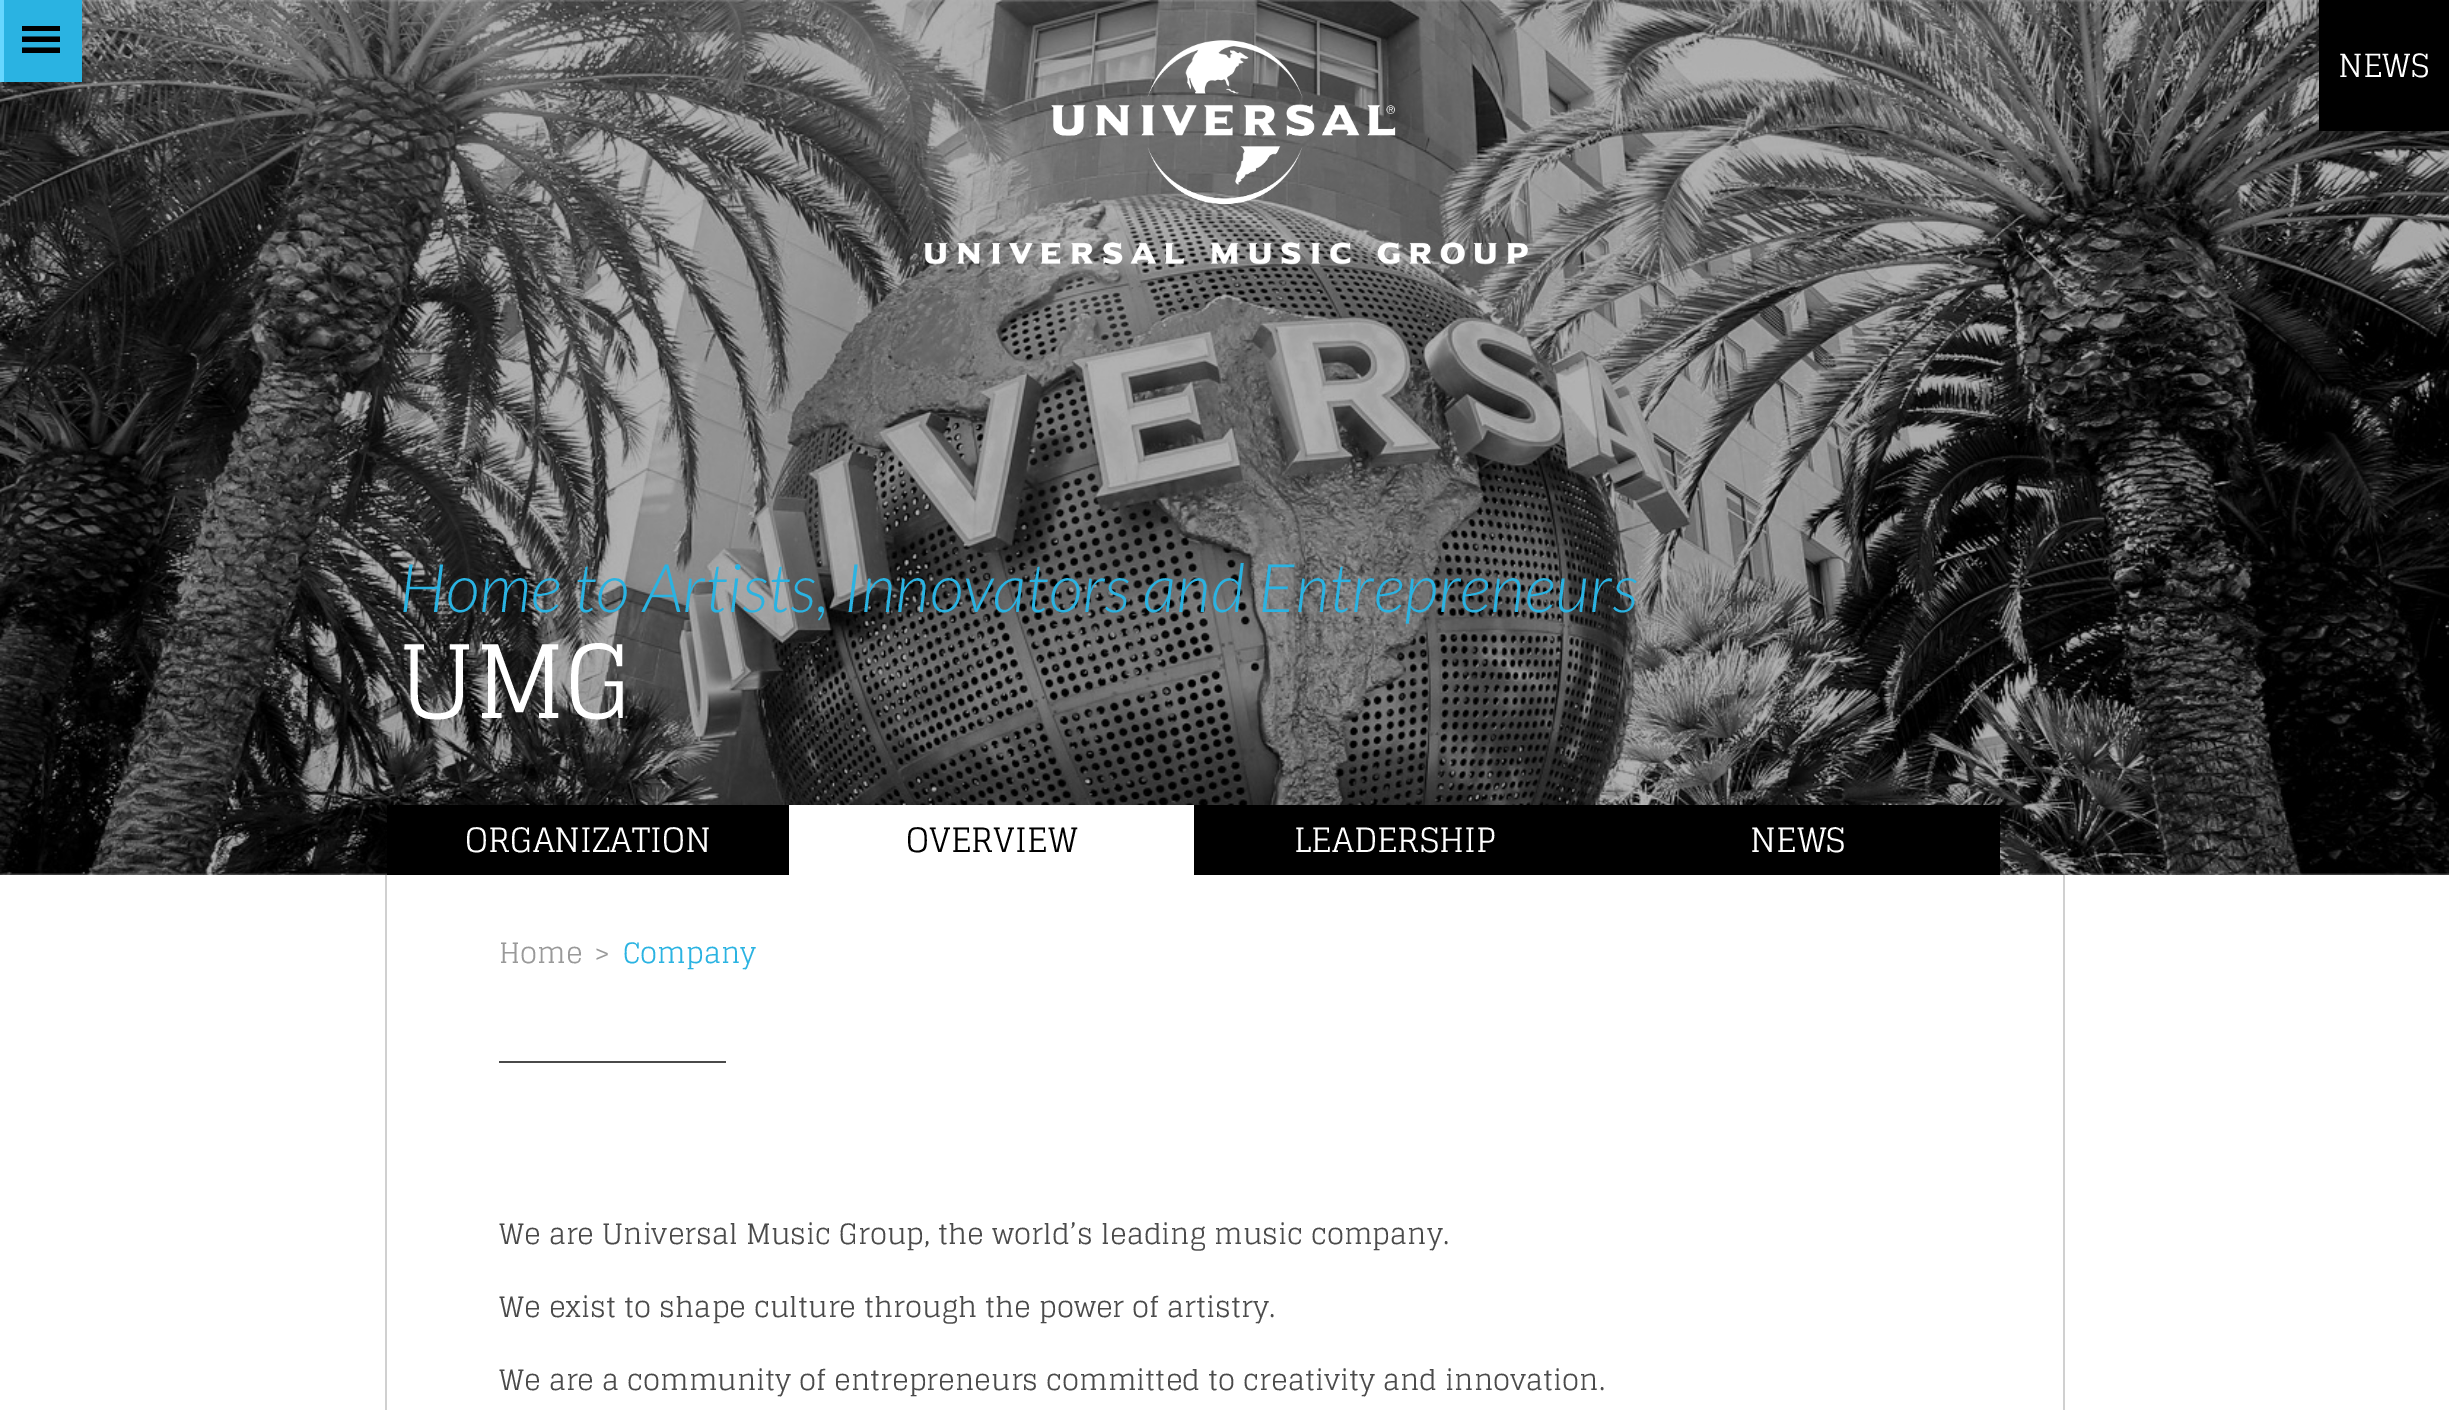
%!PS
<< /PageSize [2449 1410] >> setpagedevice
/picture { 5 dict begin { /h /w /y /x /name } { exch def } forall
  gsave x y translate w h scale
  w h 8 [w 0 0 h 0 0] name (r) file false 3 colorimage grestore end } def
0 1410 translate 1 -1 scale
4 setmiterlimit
1 setgray
0 0 2449 1410 rectfill
(img2.rgb) 0 0 2449 875 picture
0.165 0.702 0.886 setrgbcolor
4 0 78 82 rectfill
0.4 0.843 1 setrgbcolor
0 0 4 82 rectfill
0 setgray
newpath 22 53 moveto 60 53 lineto 60 47.5 lineto 22 47.5 lineto closepath 22 26 moveto 22 31 lineto 60 31 lineto 60 26 lineto closepath 22 42 moveto 60 42 lineto 60 36.5 lineto 22 36.5 lineto closepath fill
(img1.rgb) 924 40 604 225 picture
2319 0 130 131 rectfill
/Glegoo-Regular [32 0 0 -32 0 0] selectfont
1 setgray
2338 77 moveto (NEWS) show
/Lato-LightItalic [67.25 0 0 -67.25 0 0] selectfont
0.165 0.702 0.886 setrgbcolor
399 612 moveto (Home to Artists, Innovators and Entrepreneurs) show
/Glegoo-Regular [101 0 0 -101 0 0] selectfont
1 setgray
399 718 moveto (UMG) show
0.816 setgray
2063 875 2 535 rectfill
385 875 2 535 rectfill
0 setgray
387 805 402 70 rectfill
/Glegoo-Regular [33.5 0 0 -33.5 0 0] selectfont
1 setgray
465 852 moveto (ORGANIZATION) show
789 805 405 70 rectfill
0 setgray
906 852 moveto (OVERVIEW) show
1194 805 806 70 rectfill
1 setgray
1294 852 moveto (LEADERSHIP) show
1750 852 moveto (NEWS) show
/Glegoo-Regular [28 0 0 -28 0 0] selectfont
0.6 setgray
499 963 moveto (Home) show
594 963 moveto (>) show
0.165 0.702 0.886 setrgbcolor
623 963 moveto (Company) show
0.29 setgray
499 1061 227 2 rectfill
499 1244 moveto (We are Universal Music Group, the world’s leading music company.) show
499 1317 moveto (We exist to shape culture through the power of artistry.) show
499 1390 moveto (We are a community of entrepreneurs committed to creativity and innovation.) show
showpage
